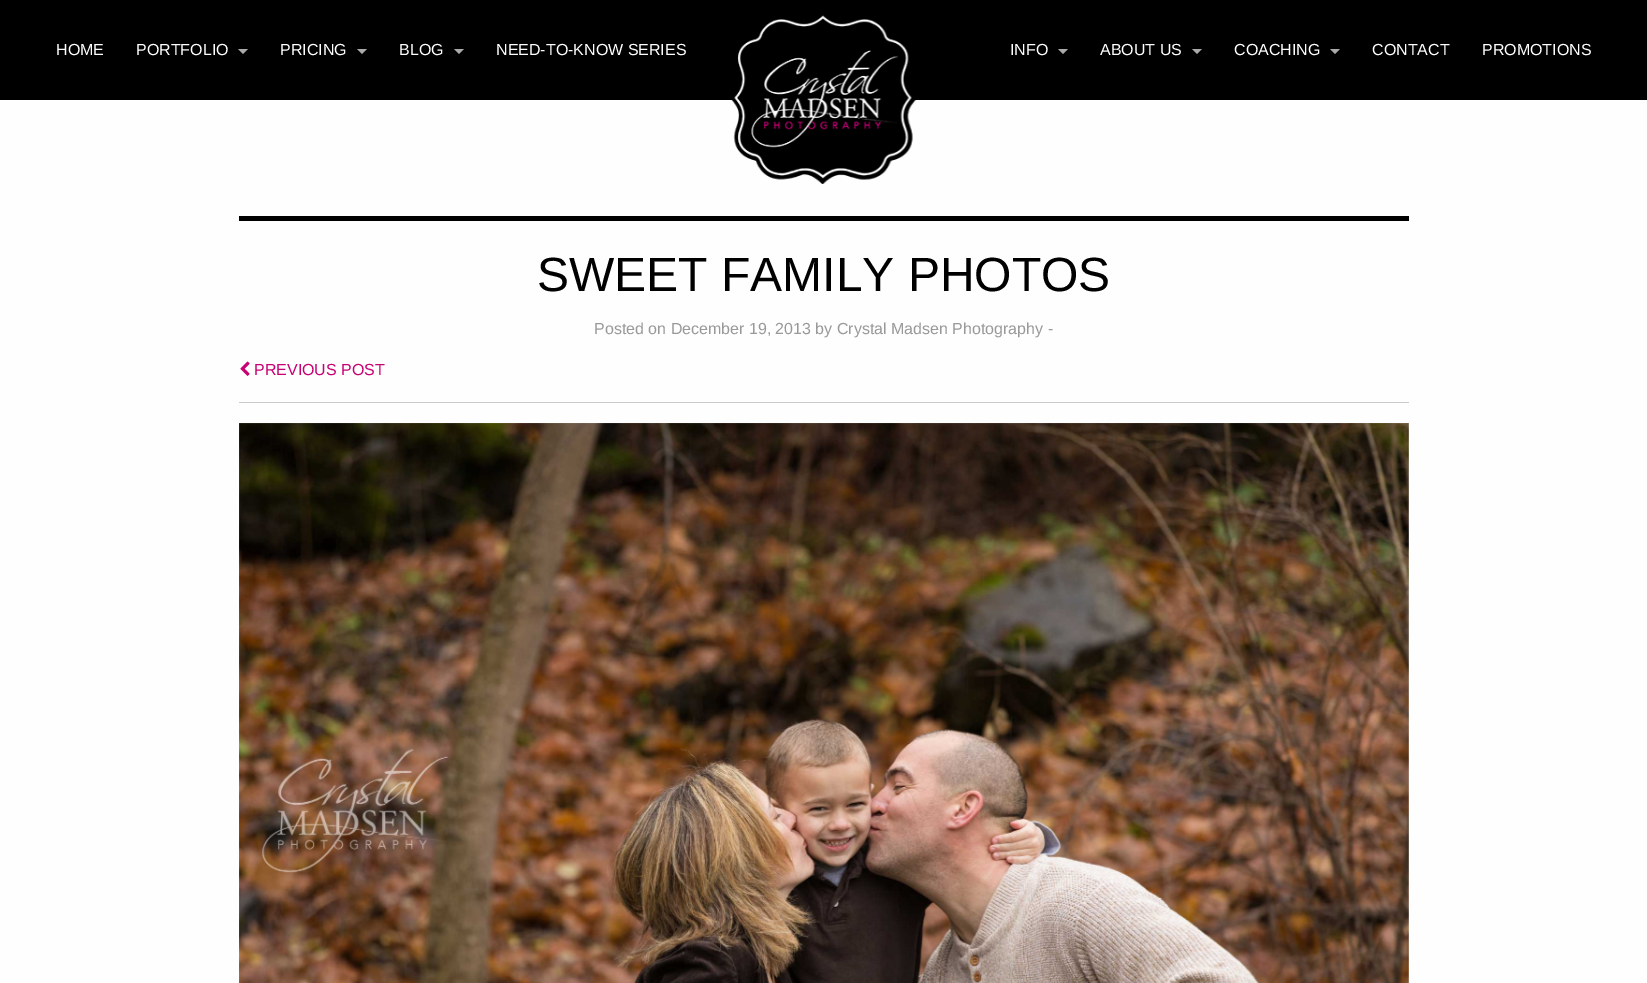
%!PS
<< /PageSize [1647 983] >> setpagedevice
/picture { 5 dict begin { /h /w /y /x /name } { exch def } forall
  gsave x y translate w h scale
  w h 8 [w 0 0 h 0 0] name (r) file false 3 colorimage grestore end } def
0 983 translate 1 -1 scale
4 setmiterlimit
0.996 setgray
0 0 1647 983 rectfill
0 setgray
0 0 1647 100 rectfill
/LiberationSans-Regular [16 0 0 -16 0 0] selectfont
1 setgray
56 55 moveto (HOME) show
136 55 moveto (PORTFOLIO) show
0.667 setgray
newpath 238 49 moveto 248 49 lineto 243 54 lineto closepath fill
1 setgray
280 55 moveto (PRICING) show
0.667 setgray
newpath 357 49 moveto 367 49 lineto 362 54 lineto closepath fill
1 setgray
399 55 moveto (BLOG) show
0.667 setgray
newpath 454 49 moveto 464 49 lineto 459 54 lineto closepath fill
1 setgray
496 55 moveto (NEED-TO-KNOW SERIES) show
(img1.rgb) 731 15 186 169 picture
1010 55 moveto (INFO) show
0.667 setgray
newpath 1058 49 moveto 1068 49 lineto 1063 54 lineto closepath fill
1 setgray
1100 55 moveto (ABOUT US) show
0.667 setgray
newpath 1192 49 moveto 1202 49 lineto 1197 54 lineto closepath fill
1 setgray
1234 55 moveto (COACHING) show
0.667 setgray
newpath 1330 49 moveto 1340 49 lineto 1335 54 lineto closepath fill
1 setgray
1372 55 moveto (CONTACT) show
1482 55 moveto (PROMOTIONS) show
0 setgray
239 216 1170 5 rectfill
/LiberationSans-Regular [48 0 0 -48 0 0] selectfont
537 291 moveto (SWEET FAMILY PHOTOS) show
/LiberationSans-Regular [16 0 0 -16 0 0] selectfont
0.6 setgray
594 334 moveto (Posted on December 19, 2013 by Crystal Madsen Photography -) show
(img2.rgb) 240 361 10 15 picture
0.78 0 0.455 setrgbcolor
254 375 moveto (PREVIOUS POST) show
0.792 setgray
239 402 1170 1 rectfill
(img3.rgb) 239 423 1170 560 picture
showpage
